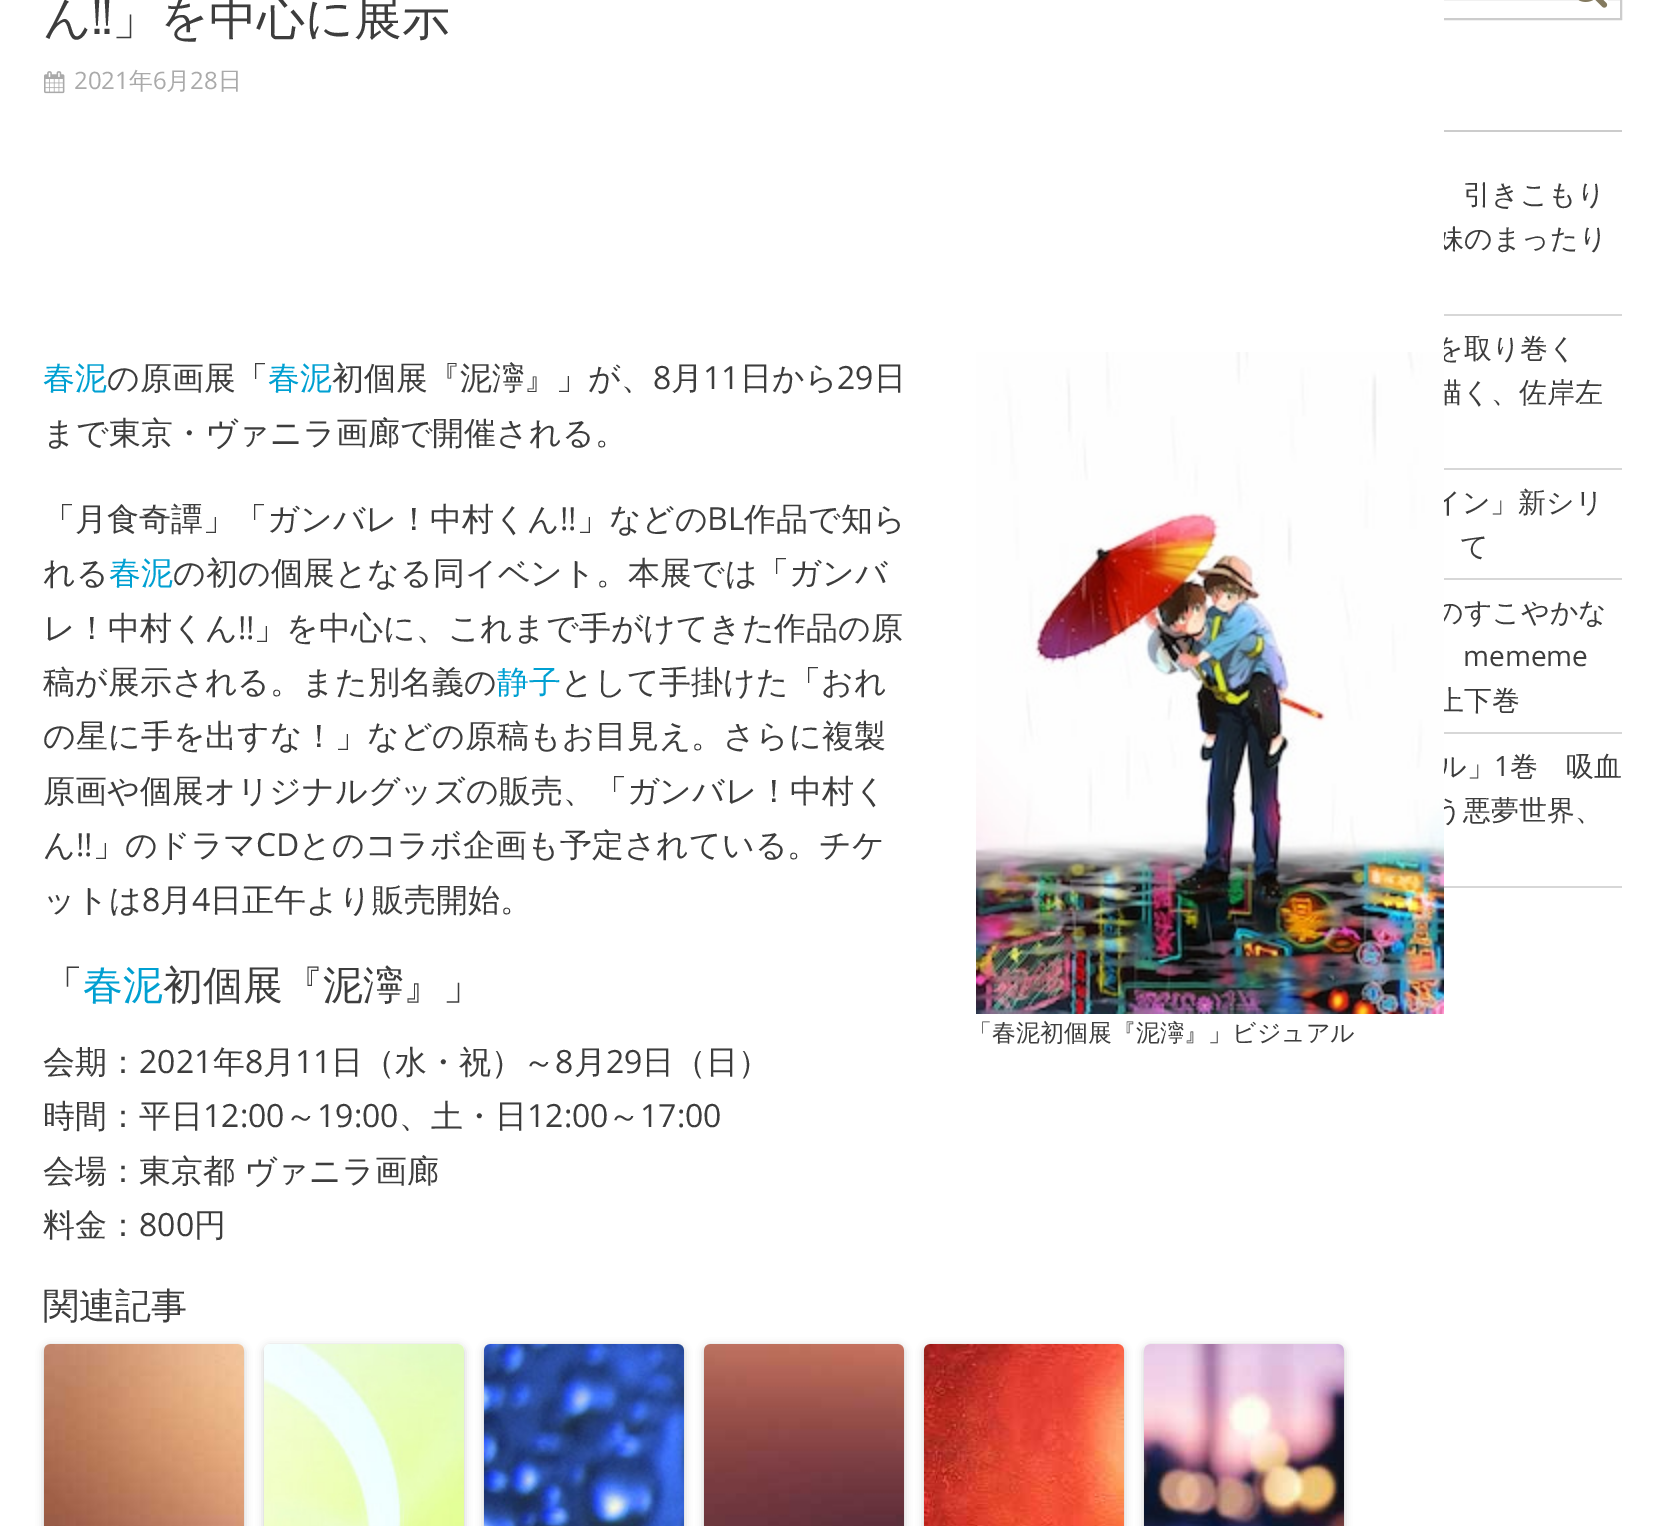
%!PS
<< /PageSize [1666 1526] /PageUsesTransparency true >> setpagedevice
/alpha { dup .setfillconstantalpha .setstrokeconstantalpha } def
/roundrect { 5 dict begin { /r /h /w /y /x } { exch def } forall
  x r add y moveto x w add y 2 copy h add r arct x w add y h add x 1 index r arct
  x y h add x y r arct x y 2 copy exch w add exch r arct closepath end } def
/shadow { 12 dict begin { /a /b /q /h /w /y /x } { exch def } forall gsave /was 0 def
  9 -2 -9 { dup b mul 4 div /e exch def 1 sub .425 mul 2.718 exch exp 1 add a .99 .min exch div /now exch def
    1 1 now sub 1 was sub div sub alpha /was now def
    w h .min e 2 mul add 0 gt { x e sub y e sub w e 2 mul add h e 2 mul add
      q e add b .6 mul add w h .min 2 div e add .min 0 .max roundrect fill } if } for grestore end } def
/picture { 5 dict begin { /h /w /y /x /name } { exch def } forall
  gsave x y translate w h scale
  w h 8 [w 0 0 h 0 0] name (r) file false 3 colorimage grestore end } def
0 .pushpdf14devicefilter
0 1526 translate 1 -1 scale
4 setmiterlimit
1 setgray
0 0 1666 1526 rectfill
0.8 setgray
2 setlinewidth
1181 -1 440 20 rectstroke
/WenQuanYiZenHei-Medium [28 0 0 -28 0 0] selectfont
0.239 setgray
1436 248 moveto (妹のまったり) show
1435 358 moveto (を取り巻く) show
1434 402 moveto (描く、佐岸左) show
1433 512 moveto (イン」新シリ) show
1435 622 moveto (のすこやかな) show
1436 710 moveto (上下巻) show
1438 776 moveto (ル」) show
1434 820 moveto (う悪夢世界、) show
1 setgray
1180 0 264 812 rectfill
/WenQuanYiZenHei-Medium [48 0 0 -48 0 0] selectfont
0.239 setgray
43 34 moveto (ん) show
/Oswald-Regular [48 0 0 -48 0 0] selectfont
92 34 moveto (!!) show
/WenQuanYiZenHei-Medium [48 0 0 -48 0 0] selectfont
112 34 moveto (」を中心に展示) show
(img1.rgb) 44 71 21 23 picture
/OpenSans-Regular [24 0 0 -24 0 0] selectfont
0.667 setgray
74 89 moveto (2021) show
/WenQuanYiZenHei-Medium [24 0 0 -24 0 0] selectfont
129 89 moveto (年) show
/OpenSans-Regular [24 0 0 -24 0 0] selectfont
153 89 moveto (6) show
/WenQuanYiZenHei-Medium [24 0 0 -24 0 0] selectfont
166 89 moveto (月) show
/OpenSans-Regular [24 0 0 -24 0 0] selectfont
190 89 moveto (28) show
/WenQuanYiZenHei-Medium [24 0 0 -24 0 0] selectfont
218 89 moveto (日) show
/WenQuanYiZenHei-Medium [32 0 0 -32 0 0] selectfont
0 0.627 0.824 setrgbcolor
43 389 moveto (春泥) show
0.239 setgray
107 389 moveto (の原画展「) show
0 0.627 0.824 setrgbcolor
268 389 moveto (春泥) show
0.239 setgray
332 389 moveto (初個展『泥濘』」が、) show
/OpenSans-Regular [32 0 0 -32 0 0] selectfont
653 389 moveto (8) show
/WenQuanYiZenHei-Medium [32 0 0 -32 0 0] selectfont
671 389 moveto (月) show
/OpenSans-Regular [32 0 0 -32 0 0] selectfont
703 389 moveto (11) show
/WenQuanYiZenHei-Medium [32 0 0 -32 0 0] selectfont
740 389 moveto (日から) show
/OpenSans-Regular [32 0 0 -32 0 0] selectfont
837 389 moveto (29) show
/WenQuanYiZenHei-Medium [32 0 0 -32 0 0] selectfont
874 389 moveto (日) show
43 444 moveto (まで東京・ヴァニラ画廊で開催される。) show
43 530 moveto (「月食奇譚」「ガンバレ！中村くん) show
/OpenSans-Regular [32 0 0 -32 0 0] selectfont
560 530 moveto (!!) show
/WenQuanYiZenHei-Medium [32 0 0 -32 0 0] selectfont
577 530 moveto (」などの) show
/OpenSans-Regular [32 0 0 -32 0 0] selectfont
707 530 moveto (BL) show
/WenQuanYiZenHei-Medium [32 0 0 -32 0 0] selectfont
744 530 moveto (作品で知ら) show
43 584 moveto (れる) show
0 0.627 0.824 setrgbcolor
109 584 moveto (春泥) show
0.239 setgray
173 584 moveto (の初の個展となる同イベント。本展では「ガンバ) show
43 639 moveto (レ！中村くん) show
/OpenSans-Regular [32 0 0 -32 0 0] selectfont
238 639 moveto (!!) show
/WenQuanYiZenHei-Medium [32 0 0 -32 0 0] selectfont
254 639 moveto (」を中心に、これまで手がけてきた作品の原) show
43 693 moveto (稿が展示される。また別名義の) show
0 0.627 0.824 setrgbcolor
497 693 moveto (静子) show
0.239 setgray
561 693 moveto (として手掛けた「おれ) show
43 747 moveto (の星に手を出すな！」などの原稿もお目見え。さらに複製) show
43 802 moveto (原画や個展オリジナルグッズの販売、「ガンバレ！中村く) show
43 856 moveto (ん) show
/OpenSans-Regular [32 0 0 -32 0 0] selectfont
76 856 moveto (!!) show
/WenQuanYiZenHei-Medium [32 0 0 -32 0 0] selectfont
93 856 moveto (」のドラマ) show
/OpenSans-Regular [32 0 0 -32 0 0] selectfont
256 856 moveto (CD) show
/WenQuanYiZenHei-Medium [32 0 0 -32 0 0] selectfont
299 856 moveto (とのコラボ企画も予定されている。チケ) show
43 911 moveto (ットは) show
/OpenSans-Regular [32 0 0 -32 0 0] selectfont
142 911 moveto (8) show
/WenQuanYiZenHei-Medium [32 0 0 -32 0 0] selectfont
160 911 moveto (月) show
/OpenSans-Regular [32 0 0 -32 0 0] selectfont
192 911 moveto (4) show
/WenQuanYiZenHei-Medium [32 0 0 -32 0 0] selectfont
210 911 moveto (日正午より販売開始。) show
/WenQuanYiZenHei-Medium [40 0 0 -40 0 0] selectfont
43 999 moveto (「) show
0 0.627 0.824 setrgbcolor
83 999 moveto (春泥) show
0.239 setgray
163 999 moveto (初個展『泥濘』」) show
(img2.rgb) 976 352 468 662 picture
/WenQuanYiZenHei-Medium [24 0 0 -24 0 0] selectfont
968 1041 moveto (「春泥初個展『泥濘』」ビジュアル) show
/WenQuanYiZenHei-Medium [32 0 0 -32 0 0] selectfont
43 1073 moveto (会期：) show
/OpenSans-Regular [32 0 0 -32 0 0] selectfont
139 1073 moveto (2021) show
/WenQuanYiZenHei-Medium [32 0 0 -32 0 0] selectfont
213 1073 moveto (年) show
/OpenSans-Regular [32 0 0 -32 0 0] selectfont
245 1073 moveto (8) show
/WenQuanYiZenHei-Medium [32 0 0 -32 0 0] selectfont
263 1073 moveto (月) show
/OpenSans-Regular [32 0 0 -32 0 0] selectfont
295 1073 moveto (11) show
/WenQuanYiZenHei-Medium [32 0 0 -32 0 0] selectfont
331 1073 moveto (日（水・祝）～) show
/OpenSans-Regular [32 0 0 -32 0 0] selectfont
555 1073 moveto (8) show
/WenQuanYiZenHei-Medium [32 0 0 -32 0 0] selectfont
574 1073 moveto (月) show
/OpenSans-Regular [32 0 0 -32 0 0] selectfont
606 1073 moveto (29) show
/WenQuanYiZenHei-Medium [32 0 0 -32 0 0] selectfont
642 1073 moveto (日（日）) show
43 1127 moveto (時間：平日) show
/OpenSans-Regular [32 0 0 -32 0 0] selectfont
203 1127 moveto (12:00) show
/WenQuanYiZenHei-Medium [32 0 0 -32 0 0] selectfont
285 1127 moveto (～) show
/OpenSans-Regular [32 0 0 -32 0 0] selectfont
317 1127 moveto (19:00) show
/WenQuanYiZenHei-Medium [32 0 0 -32 0 0] selectfont
399 1127 moveto (、土・日) show
/OpenSans-Regular [32 0 0 -32 0 0] selectfont
527 1127 moveto (12:00) show
/WenQuanYiZenHei-Medium [32 0 0 -32 0 0] selectfont
608 1127 moveto (～) show
/OpenSans-Regular [32 0 0 -32 0 0] selectfont
640 1127 moveto (17:00) show
/WenQuanYiZenHei-Medium [32 0 0 -32 0 0] selectfont
43 1182 moveto -1 0 32 (会場：東京都 ヴァニラ画廊) widthshow
43 1236 moveto (料金：) show
/OpenSans-Regular [32 0 0 -32 0 0] selectfont
139 1236 moveto (800) show
/WenQuanYiZenHei-Medium [32 0 0 -32 0 0] selectfont
194 1236 moveto (円) show
/WenQuanYiZenHei-Medium [36 0 0 -36 0 0] selectfont
43 1318 moveto (関連記事) show
0 setgray
44 1346 200 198 6 4 0.2 shadow
(img3.rgb) 44 1344 200 182 picture
264 1346 200 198 6 4 0.2 shadow
(img4.rgb) 264 1344 200 182 picture
484 1346 200 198 6 4 0.2 shadow
(img5.rgb) 484 1344 200 182 picture
704 1346 200 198 6 4 0.2 shadow
(img6.rgb) 704 1344 200 182 picture
924 1346 200 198 6 4 0.2 shadow
(img7.rgb) 924 1344 200 182 picture
1144 1346 200 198 6 4 0.2 shadow
(img8.rgb) 1144 1344 200 182 picture
(img9.rgb) 1578 0 30 8 picture
0.8 setgray
1444 130 178 2 rectfill
0.843 setgray
1444 314 178 2 rectfill
/WenQuanYiZenHei-Medium [28 0 0 -28 0 0] selectfont
0.239 setgray
1463 204 moveto (引きこもり) show
0.843 setgray
1444 468 178 2 rectfill
1444 578 178 2 rectfill
0.239 setgray
1460 556 moveto (て) show
0.843 setgray
1444 732 178 2 rectfill
/OpenSans-Regular [28 0 0 -28 0 0] selectfont
0.239 setgray
1463 666 moveto (mememe) show
0.843 setgray
1444 886 178 2 rectfill
0.239 setgray
1494 776 moveto (1) show
/WenQuanYiZenHei-Medium [28 0 0 -28 0 0] selectfont
1510 776 moveto (巻　吸血) show
.poppdf14devicefilter showpage
